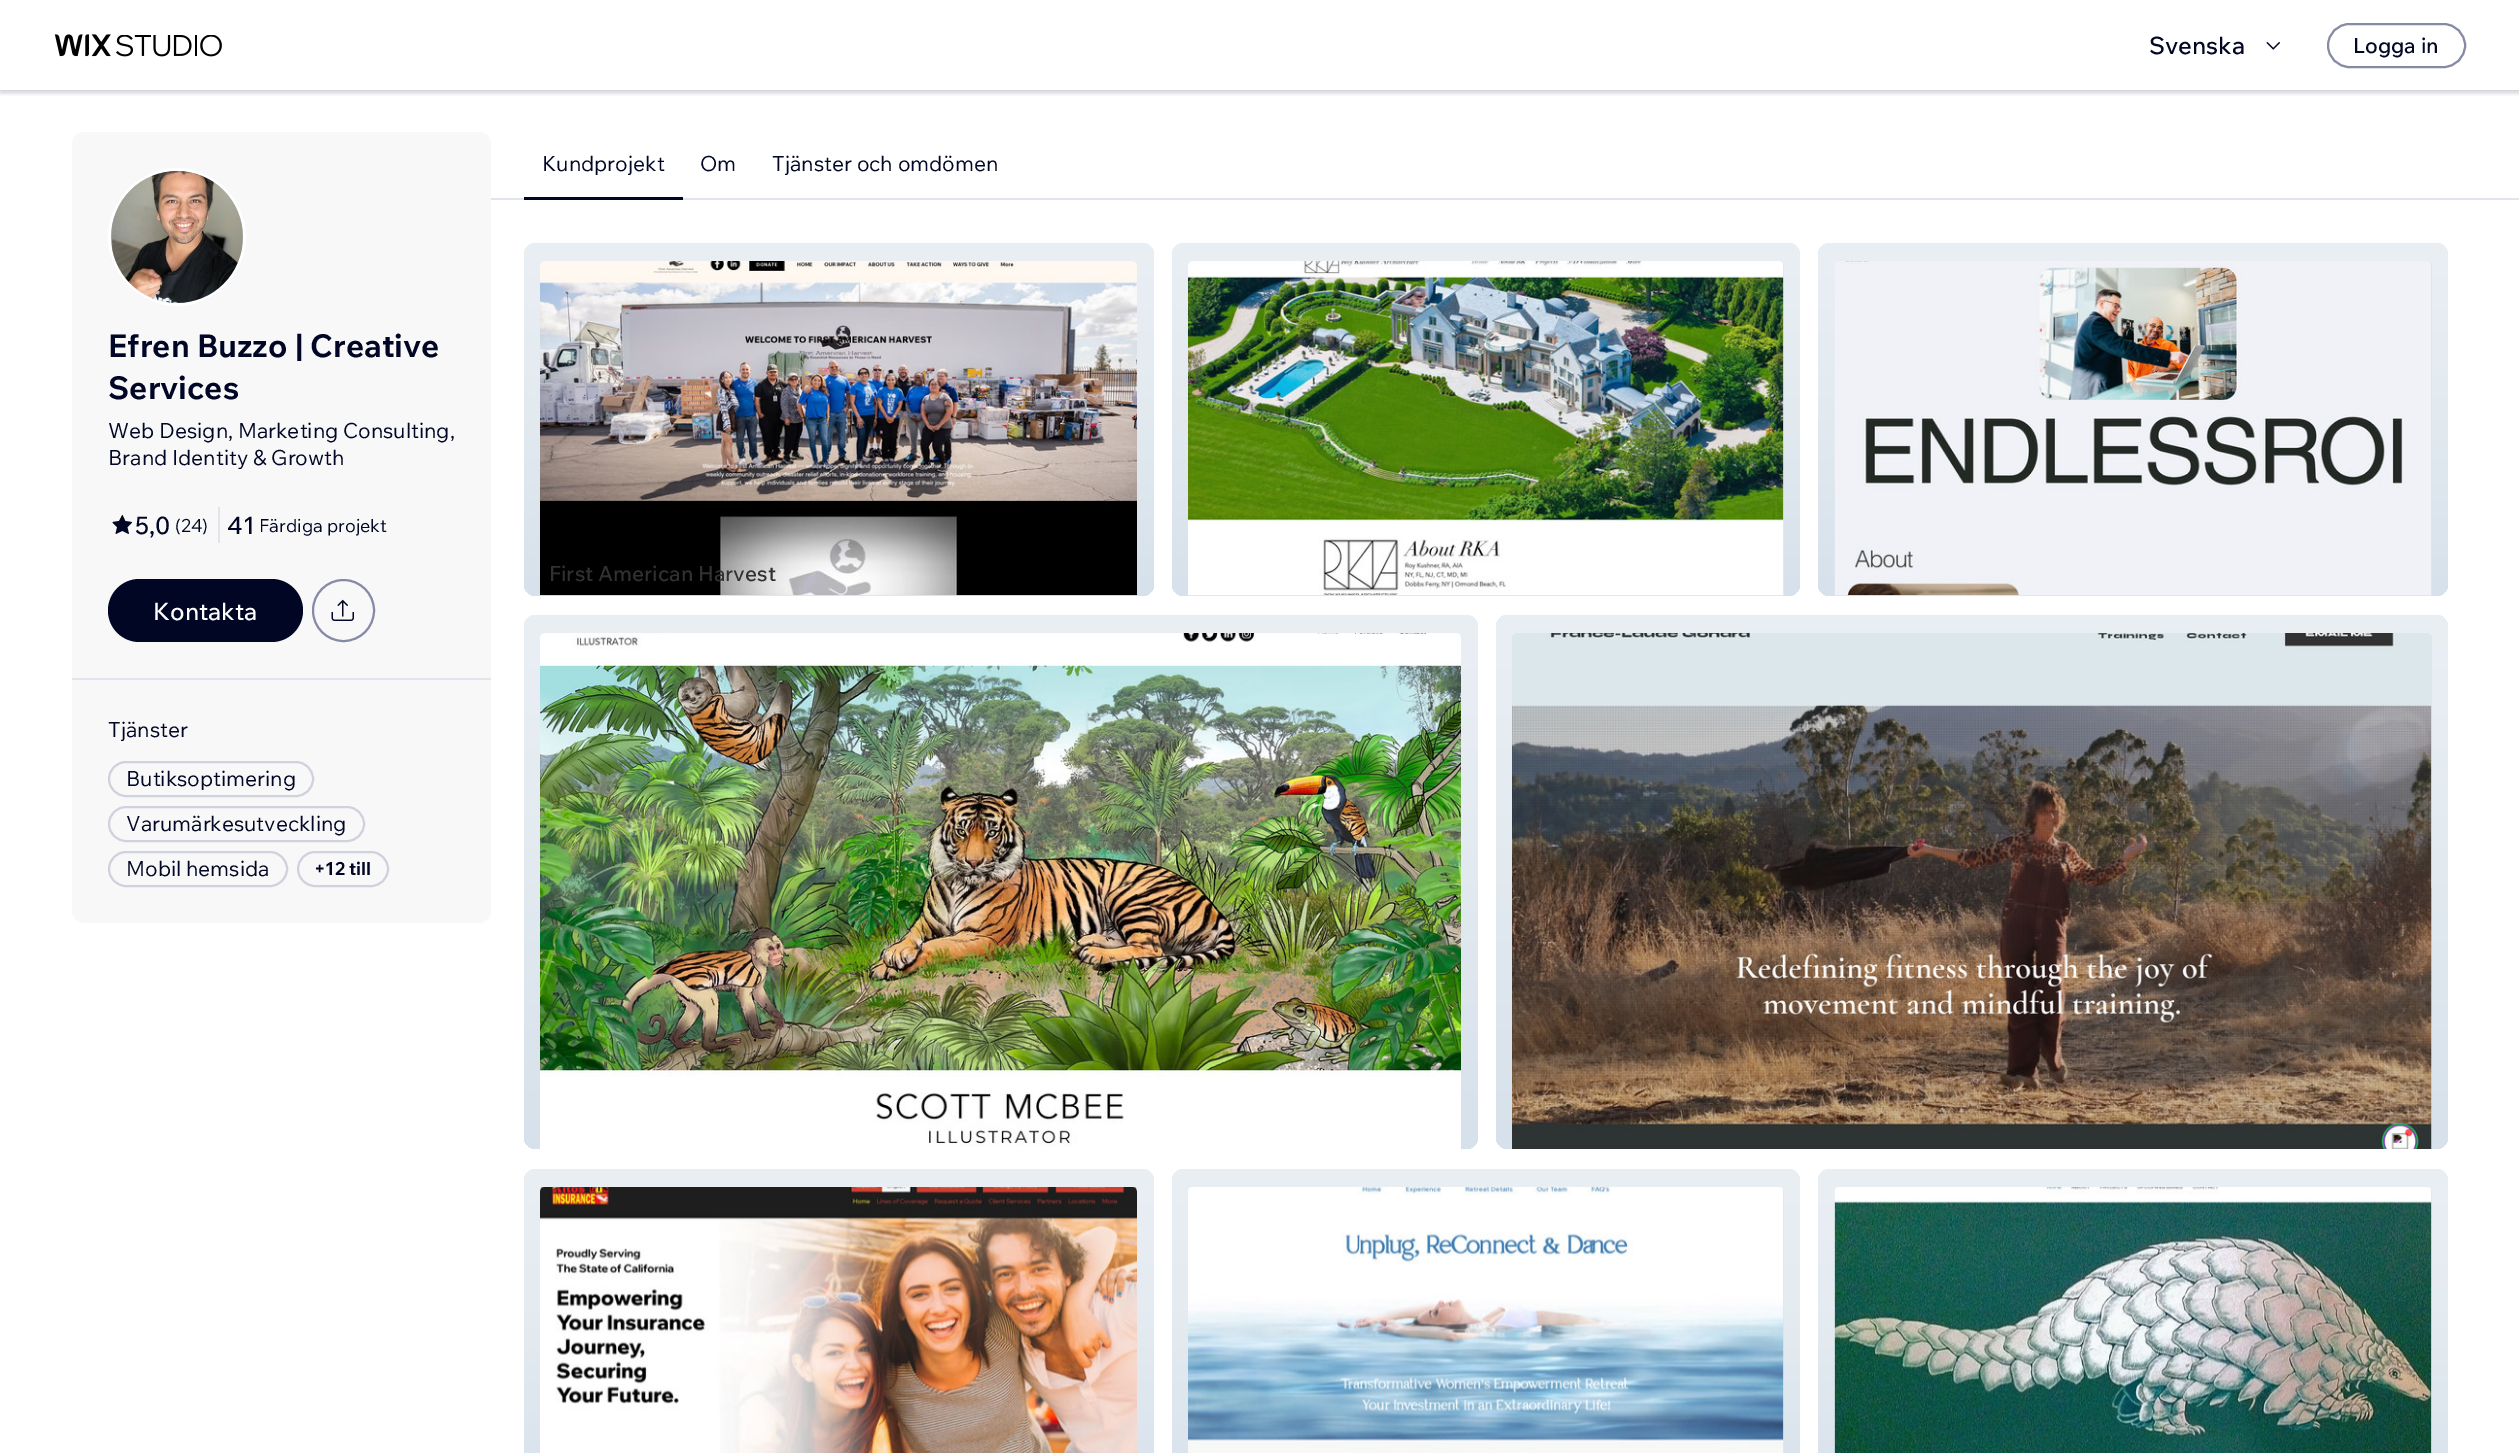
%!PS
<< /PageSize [2519 1453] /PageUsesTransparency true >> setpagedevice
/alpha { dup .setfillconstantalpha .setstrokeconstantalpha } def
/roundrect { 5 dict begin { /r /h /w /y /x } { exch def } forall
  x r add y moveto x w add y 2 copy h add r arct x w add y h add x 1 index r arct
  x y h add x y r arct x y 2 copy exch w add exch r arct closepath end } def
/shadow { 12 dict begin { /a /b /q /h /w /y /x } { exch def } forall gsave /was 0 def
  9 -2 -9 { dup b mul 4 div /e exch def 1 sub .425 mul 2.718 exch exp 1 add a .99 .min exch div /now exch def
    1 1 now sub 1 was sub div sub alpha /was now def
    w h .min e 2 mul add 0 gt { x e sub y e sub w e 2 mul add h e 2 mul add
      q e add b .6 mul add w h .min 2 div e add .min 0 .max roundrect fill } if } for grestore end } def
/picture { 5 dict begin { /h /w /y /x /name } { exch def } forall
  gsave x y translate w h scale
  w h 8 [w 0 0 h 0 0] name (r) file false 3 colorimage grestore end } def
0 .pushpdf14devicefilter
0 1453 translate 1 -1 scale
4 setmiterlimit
1 setgray
0 0 2519 1453 rectfill
gsave
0 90 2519 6 rectclip
0 0.024 0.141 setrgbcolor
0 3 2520 90 0 3 0.12 shadow
grestore
gsave
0 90 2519 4 rectclip
0 0.024 0.141 setrgbcolor
0 0 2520 90 0 4.5 0.12 shadow
grestore
(img1.rgb) 54 34 57 23 picture
(img2.rgb) 116 35 106 22 picture
/WixMadeforText-Medium [24 0 0 -24 0 0] selectfont
0 0.024 0.141 setrgbcolor
2149 54 moveto (Svenska) show
(img3.rgb) 2266 42 14 8 picture
0.525 0.541 0.647 setrgbcolor
2 setlinewidth
2328 24 137 43 21.5 roundrect stroke
/WixMadeforText-Medium [21 0 0 -21 0 0] selectfont
0 0.024 0.141 setrgbcolor
2353 53 moveto (Logga in) show
0.973 0.973 0.976 setrgbcolor
72 132 419 791 12 roundrect fill
0.875 0.898 0.922 setrgbcolor
newpath 177 237 67.5 0 360 arc closepath gsave fill grestore
1 setgray
3 setlinewidth
stroke
(img4.rgb) 111 171 132 132 picture
/WixMadeforText-Bold [31.5 0 0 -31.5 0 0] selectfont
0 0.024 0.141 setrgbcolor
108 357 moveto (Efren Buzzo | Creative) show
108 399 moveto (Services) show
/WixMadeforText-Regular [21 0 0 -21 0 0] selectfont
108 438 moveto (Web Design, Marketing Consulting,) show
108 465 moveto (Brand Identity & Growth) show
(img5.rgb) 112 515 20 19 picture
/WixMadeforText-Medium [24 0 0 -24 0 0] selectfont
135 534 moveto (5,0) show
/WixMadeforText-Regular [18 0 0 -18 0 0] selectfont
175 532 moveto (\(24\)) show
0.875 0.898 0.922 setrgbcolor
218 507 2 36 rectfill
/WixMadeforText-Medium [24 0 0 -24 0 0] selectfont
0 0.024 0.141 setrgbcolor
227 534 moveto (41) show
/WixMadeforText-Regular [18 0 0 -18 0 0] selectfont
259 532 moveto (Färdiga projekt) show
108 579 195 63 31.5 roundrect fill
/WixMadeforText-Medium [24 0 0 -24 0 0] selectfont
1 setgray
153 620 moveto (Kontakta) show
0.525 0.541 0.647 setrgbcolor
2 setlinewidth
newpath 343.5 610.5 30.5 0 360 arc closepath stroke
(img6.rgb) 331 599 23 22 picture
0.875 0.898 0.922 setrgbcolor
72 678 419 2 rectfill
/WixMadeforText-Regular [21 0 0 -21 0 0] selectfont
0 0.024 0.141 setrgbcolor
108 737 moveto (Tjänster) show
0.812 0.82 0.863 setrgbcolor
109 762 204 34 17 roundrect stroke
0 0.024 0.141 setrgbcolor
126 786 moveto (Butiksoptimering) show
0.812 0.82 0.863 setrgbcolor
109 807 255 34 17 roundrect stroke
0 0.024 0.141 setrgbcolor
126 831 moveto (Varumärkesutveckling) show
0.812 0.82 0.863 setrgbcolor
109 852 178 34 17 roundrect stroke
0 0.024 0.141 setrgbcolor
126 876 moveto (Mobil hemsida) show
0.812 0.82 0.863 setrgbcolor
298 852 90 34 17 roundrect stroke
/WixMadeforText-Bold [18 0 0 -18 0 0] selectfont
0 0.024 0.141 setrgbcolor
314 875 moveto (+12 till) show
/WixMadeforText-Regular [21 0 0 -21 0 0] selectfont
542 171 moveto (Kundprojekt) show
0.875 0.898 0.922 setrgbcolor
491 198 2028 2 rectfill
0 0.024 0.141 setrgbcolor
524 197 159 3 rectfill
700 171 moveto (Om) show
772 171 moveto (Tjänster och omdömen) show
gsave 524 243 630 353 12 roundrect clip newpath
<< /ShadingType 2 /ColorSpace /DeviceRGB /Coords [839 243 839 596] /Extend [true true] /Function << /FunctionType 3 /Domain [0 1] /Functions [<< /FunctionType 2 /Domain [0 1] /C0 [0.918 0.937 0.957] /C1 [0.886 0.918 0.941] /N 1 >> << /FunctionType 2 /Domain [0 1] /C0 [0.886 0.918 0.941] /C1 [0.843 0.882 0.922] /N 1 >>] /Bounds [0.5] /Encode [0 1 0 1] >> >> shfill grestore
0.875 0.898 0.922 setrgbcolor
newpath 545 261 moveto 1132 261 lineto 1135 261 1137 263 1137 266 curveto 1137 596 lineto 540 596 lineto 540 266 lineto 540 263 542 261 545 261 curveto closepath fill
(img7.rgb) 540 261 597 335 picture
/WixMadeforText-Medium [21 0 0 -21 0 0] selectfont
0.192 setgray
549 581 moveto (First American Harvest) show
gsave 1172 243 628 353 12 roundrect clip newpath
<< /ShadingType 2 /ColorSpace /DeviceRGB /Coords [1486 243 1486 596] /Extend [true true] /Function << /FunctionType 3 /Domain [0 1] /Functions [<< /FunctionType 2 /Domain [0 1] /C0 [0.918 0.937 0.957] /C1 [0.886 0.918 0.941] /N 1 >> << /FunctionType 2 /Domain [0 1] /C0 [0.886 0.918 0.941] /C1 [0.843 0.882 0.922] /N 1 >>] /Bounds [0.5] /Encode [0 1 0 1] >> >> shfill grestore
0.875 0.898 0.922 setrgbcolor
newpath 1193 261 moveto 1779 261 lineto 1782 261 1784 263 1784 266 curveto 1784 596 lineto 1188 596 lineto 1188 266 lineto 1188 263 1190 261 1193 261 curveto closepath fill
(img8.rgb) 1188 261 596 335 picture
gsave 1818 243 630 353 12 roundrect clip newpath
<< /ShadingType 2 /ColorSpace /DeviceRGB /Coords [2133 243 2133 596] /Extend [true true] /Function << /FunctionType 3 /Domain [0 1] /Functions [<< /FunctionType 2 /Domain [0 1] /C0 [0.918 0.937 0.957] /C1 [0.886 0.918 0.941] /N 1 >> << /FunctionType 2 /Domain [0 1] /C0 [0.886 0.918 0.941] /C1 [0.843 0.882 0.922] /N 1 >>] /Bounds [0.5] /Encode [0 1 0 1] >> >> shfill grestore
newpath 1840 261 moveto 2427 261 lineto 2430 261 2432 263 2432 266 curveto 2432 596 lineto 1835 596 lineto 1835 266 lineto 1835 263 1837 261 1840 261 curveto closepath fill
(img9.rgb) 1834 261 597 335 picture
gsave 524 615 954 534 12 roundrect clip newpath
<< /ShadingType 2 /ColorSpace /DeviceRGB /Coords [1001 615 1001 1149] /Extend [true true] /Function << /FunctionType 3 /Domain [0 1] /Functions [<< /FunctionType 2 /Domain [0 1] /C0 [0.918 0.937 0.957] /C1 [0.886 0.918 0.941] /N 1 >> << /FunctionType 2 /Domain [0 1] /C0 [0.886 0.918 0.941] /C1 [0.843 0.882 0.922] /N 1 >>] /Bounds [0.5] /Encode [0 1 0 1] >> >> shfill grestore
(img10.rgb) 540 633 921 516 picture
gsave 1496 615 952 534 12 roundrect clip newpath
<< /ShadingType 2 /ColorSpace /DeviceRGB /Coords [1972 615 1972 1149] /Extend [true true] /Function << /FunctionType 3 /Domain [0 1] /Functions [<< /FunctionType 2 /Domain [0 1] /C0 [0.918 0.937 0.957] /C1 [0.886 0.918 0.941] /N 1 >> << /FunctionType 2 /Domain [0 1] /C0 [0.886 0.918 0.941] /C1 [0.843 0.882 0.922] /N 1 >>] /Bounds [0.5] /Encode [0 1 0 1] >> >> shfill grestore
newpath 1517 633 moveto 2427 633 lineto 2430 633 2432 635 2432 638 curveto 2432 1149 lineto 1512 1149 lineto 1512 638 lineto 1512 635 1514 633 1517 633 curveto closepath fill
(img11.rgb) 1512 633 920 516 picture
gsave 524 1169 630 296 12 roundrect clip newpath
<< /ShadingType 2 /ColorSpace /DeviceRGB /Coords [839 1169 839 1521] /Extend [true true] /Function << /FunctionType 3 /Domain [0 1] /Functions [<< /FunctionType 2 /Domain [0 1] /C0 [0.918 0.937 0.957] /C1 [0.886 0.918 0.941] /N 1 >> << /FunctionType 2 /Domain [0 1] /C0 [0.886 0.918 0.941] /C1 [0.843 0.882 0.922] /N 1 >>] /Bounds [0.5] /Encode [0 1 0 1] >> >> shfill grestore
(img12.rgb) 540 1187 597 266 picture
gsave 1172 1169 628 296 12 roundrect clip newpath
<< /ShadingType 2 /ColorSpace /DeviceRGB /Coords [1486 1169 1486 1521] /Extend [true true] /Function << /FunctionType 3 /Domain [0 1] /Functions [<< /FunctionType 2 /Domain [0 1] /C0 [0.918 0.937 0.957] /C1 [0.886 0.918 0.941] /N 1 >> << /FunctionType 2 /Domain [0 1] /C0 [0.886 0.918 0.941] /C1 [0.843 0.882 0.922] /N 1 >>] /Bounds [0.5] /Encode [0 1 0 1] >> >> shfill grestore
newpath 1193 1187 moveto 1779 1187 lineto 1782 1187 1784 1189 1784 1192 curveto 1784 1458 lineto 1188 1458 lineto 1188 1192 lineto 1188 1189 1190 1187 1193 1187 curveto closepath fill
(img13.rgb) 1188 1187 596 266 picture
gsave 1818 1169 630 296 12 roundrect clip newpath
<< /ShadingType 2 /ColorSpace /DeviceRGB /Coords [2133 1169 2133 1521] /Extend [true true] /Function << /FunctionType 3 /Domain [0 1] /Functions [<< /FunctionType 2 /Domain [0 1] /C0 [0.918 0.937 0.957] /C1 [0.886 0.918 0.941] /N 1 >> << /FunctionType 2 /Domain [0 1] /C0 [0.886 0.918 0.941] /C1 [0.843 0.882 0.922] /N 1 >>] /Bounds [0.5] /Encode [0 1 0 1] >> >> shfill grestore
newpath 1840 1187 moveto 2427 1187 lineto 2430 1187 2432 1189 2432 1192 curveto 2432 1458 lineto 1835 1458 lineto 1835 1192 lineto 1835 1189 1837 1187 1840 1187 curveto closepath fill
(img14.rgb) 1834 1187 598 266 picture
.poppdf14devicefilter showpage
